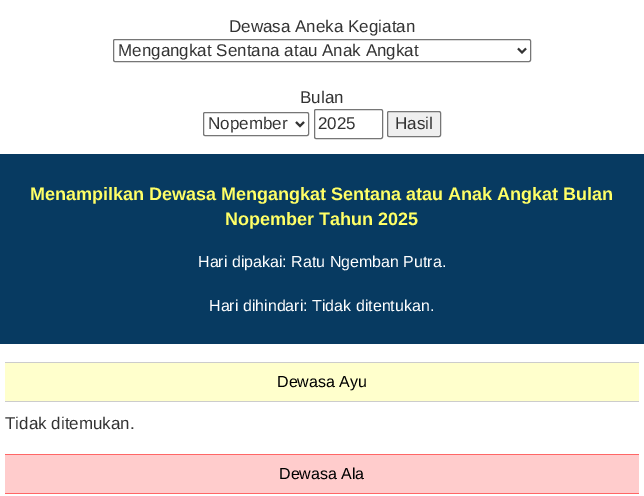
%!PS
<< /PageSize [644 496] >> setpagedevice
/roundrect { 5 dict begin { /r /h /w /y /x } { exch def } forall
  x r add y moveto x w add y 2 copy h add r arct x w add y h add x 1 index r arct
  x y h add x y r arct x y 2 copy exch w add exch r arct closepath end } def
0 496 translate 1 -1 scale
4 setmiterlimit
1 setgray
0 0 644 496 rectfill
/LiberationSans-Regular [17 0 0 -17 0 0] selectfont
0.2 setgray
229 32 moveto (Dewasa Aneka Kegiatan) show
0.463 setgray
113.5 39.5 417 22 1.5 roundrect stroke
0.2 setgray
2 setlinewidth
newpath 518 48.5 moveto 522 52.5 lineto 526 48.5 lineto stroke
118 56 moveto (Mengangkat Sentana atau Anak Angkat) show
300 103 moveto (Bulan) show
0.463 setgray
1 setlinewidth
203.5 112.5 105 23 1.5 roundrect stroke
0.2 setgray
2 setlinewidth
newpath 296 122 moveto 300 126 lineto 304 122 lineto stroke
208 129 moveto (Nopember) show
0.463 setgray
1 setlinewidth
314.5 109.5 68 29 1.5 roundrect stroke
0.2 setgray
318 129 moveto (2025) show
0.937 setgray
387.5 111.5 53 25 1.5 roundrect gsave fill grestore
0.463 setgray
stroke
0.2 setgray
395 129 moveto (Hasil) show
0.027 0.227 0.38 setrgbcolor
0 154 644 190 rectfill
/LiberationSans-Bold [18 0 0 -18 0 0] selectfont
1 1 0.4 setrgbcolor
30 200 moveto (Menampilkan Dewasa Mengangkat Sentana atau Anak Angkat Bulan) show
225 225 moveto (Nopember Tahun 2025) show
/LiberationSans-Regular [16 0 0 -16 0 0] selectfont
1 setgray
198 267 moveto (Hari dipakai: Ratu Ngemban Putra.) show
209 311 moveto (Hari dihindari: Tidak ditentukan.) show
1 1 0.8 setrgbcolor
5 363 634 38 rectfill
0.8 setgray
5 362 634 1 rectfill
5 401 634 1 rectfill
0 setgray
277 387 moveto (Dewasa Ayu) show
/LiberationSans-Regular [17 0 0 -17 0 0] selectfont
0.2 setgray
5 429 moveto (Tidak ditemukan.) show
1 0.8 0.8 setrgbcolor
5 455 634 38 rectfill
1 0.4 0.4 setrgbcolor
5 454 634 1 rectfill
5 493 634 1 rectfill
/LiberationSans-Regular [16 0 0 -16 0 0] selectfont
0 setgray
279 479 moveto (Dewasa Ala) show
showpage
